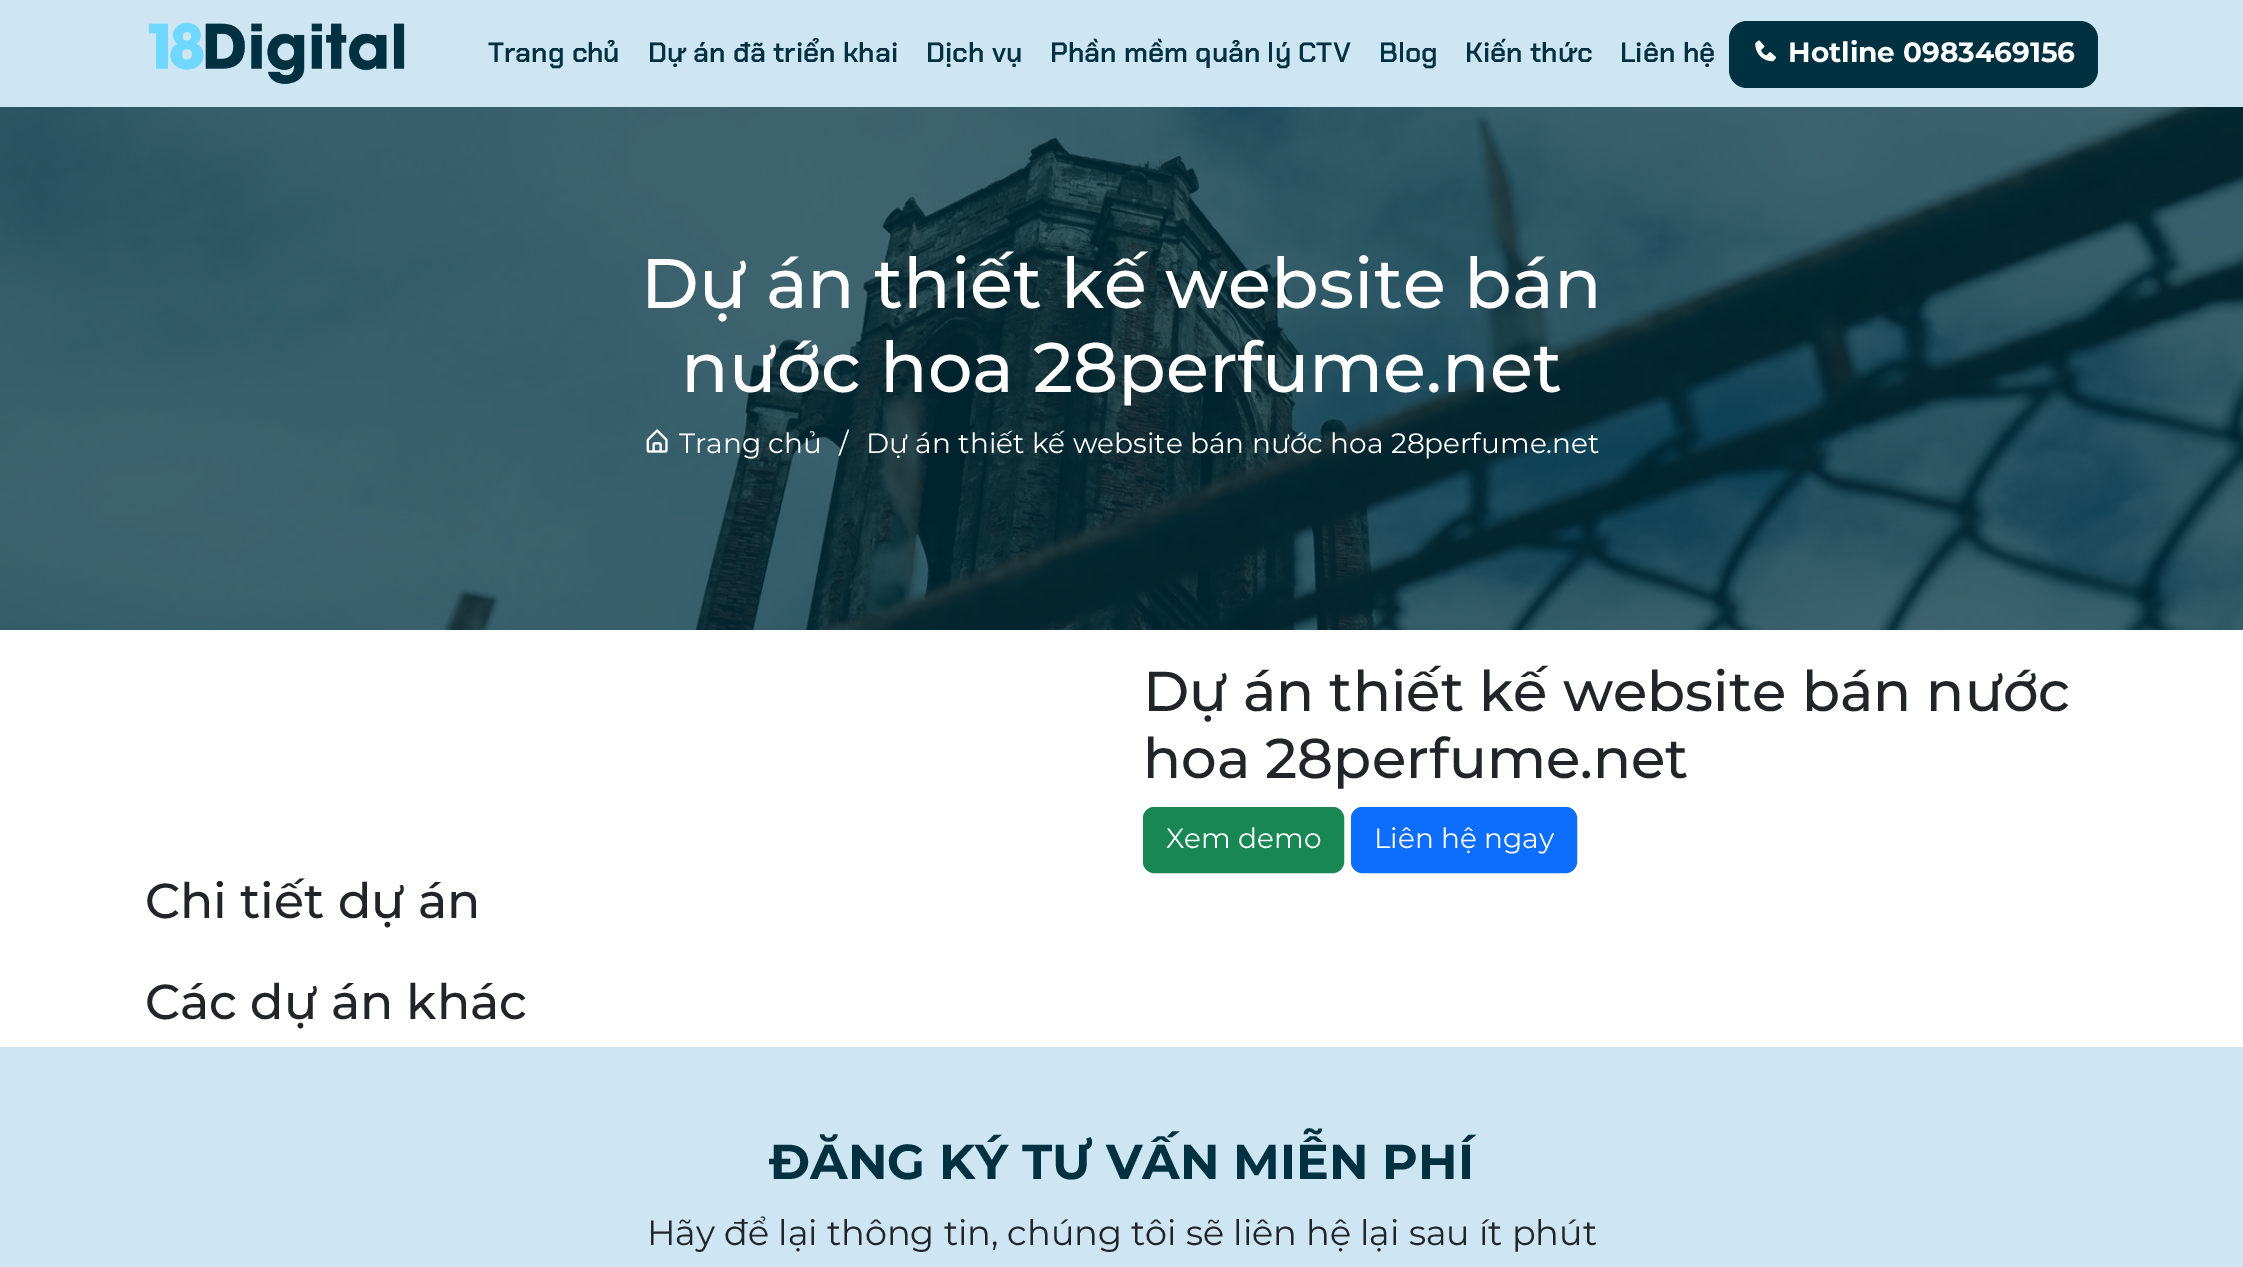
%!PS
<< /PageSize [2243 1267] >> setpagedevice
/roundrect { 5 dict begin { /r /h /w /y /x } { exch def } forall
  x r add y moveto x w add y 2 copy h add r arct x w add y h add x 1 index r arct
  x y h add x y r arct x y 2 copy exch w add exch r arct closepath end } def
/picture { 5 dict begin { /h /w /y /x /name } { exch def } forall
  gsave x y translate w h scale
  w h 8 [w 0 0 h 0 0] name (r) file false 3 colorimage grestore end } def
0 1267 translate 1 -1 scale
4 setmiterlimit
1 setgray
0 0 2243 1267 rectfill
0.808 0.902 0.953 setrgbcolor
0 0 2243 107 rectfill
(img1.rgb) 148 22 257 63 picture
/ChakraPetch-SemiBold [28 0 0 -28 0 0] selectfont
0 0.192 0.255 setrgbcolor
488 62 moveto (Trang chủ) show
648 62 moveto (Dự án đã triển khai) show
926 62 moveto (Dịch vụ) show
1050 62 moveto (Phần mềm quản lý CTV) show
1379 62 moveto (Blog) show
1465 62 moveto (Kiến thức) show
1620 62 moveto (Liên hệ) show
1729 21 369 67 18 roundrect fill
(img2.rgb) 1755 40 21 22 picture
/Montserrat-Bold [28 0 0 -28 0 0] selectfont
1 setgray
1788 62 moveto (Hotline 0983469156) show
(img3.rgb) 0 107 2243 523 picture
/Montserrat-Medium [70 0 0 -70 0 0] selectfont
641 308 moveto (Dự án thiết kế website bán) show
681 392 moveto (nước hoa 28perfume.net) show
(img4.rgb) 646 429 22 24 picture
/Montserrat-Regular [28 0 0 -28 0 0] selectfont
679 453 moveto (Trang chủ) show
839 453 moveto (/) show
866 453 moveto (Dự án thiết kế website bán nước hoa 28perfume.net) show
/Montserrat-Medium [56 0 0 -56 0 0] selectfont
0.129 0.145 0.161 setrgbcolor
1143 711 moveto (Dự án thiết kế website bán nước) show
1143 778 moveto (hoa 28perfume.net) show
0.098 0.529 0.329 setrgbcolor
1144 808 199 64 10 roundrect gsave fill grestore
2 setlinewidth
stroke
/Montserrat-Regular [28 0 0 -28 0 0] selectfont
1 setgray
1166 848 moveto (Xem demo) show
0.051 0.431 0.992 setrgbcolor
1352 808 224 64 10 roundrect gsave fill grestore
stroke
1 setgray
1374 848 moveto (Liên hệ ngay) show
/Montserrat-Medium [49 0 0 -49 0 0] selectfont
0.129 0.145 0.161 setrgbcolor
145 918 moveto (Chi tiết dự án) show
145 1019 moveto (Các dự án khác) show
0.808 0.902 0.953 setrgbcolor
0 1047 2243 220 rectfill
/Montserrat-Bold [49 0 0 -49 0 0] selectfont
0 0.192 0.255 setrgbcolor
769 1179 moveto (ĐĂNG KÝ TƯ VẤN MIỄN PHÍ) show
/Montserrat-Regular [35 0 0 -35 0 0] selectfont
0.129 0.145 0.161 setrgbcolor
647 1245 moveto (Hãy để lại thông tin, chúng tôi sẽ liên hệ lại sau ít phút) show
showpage
